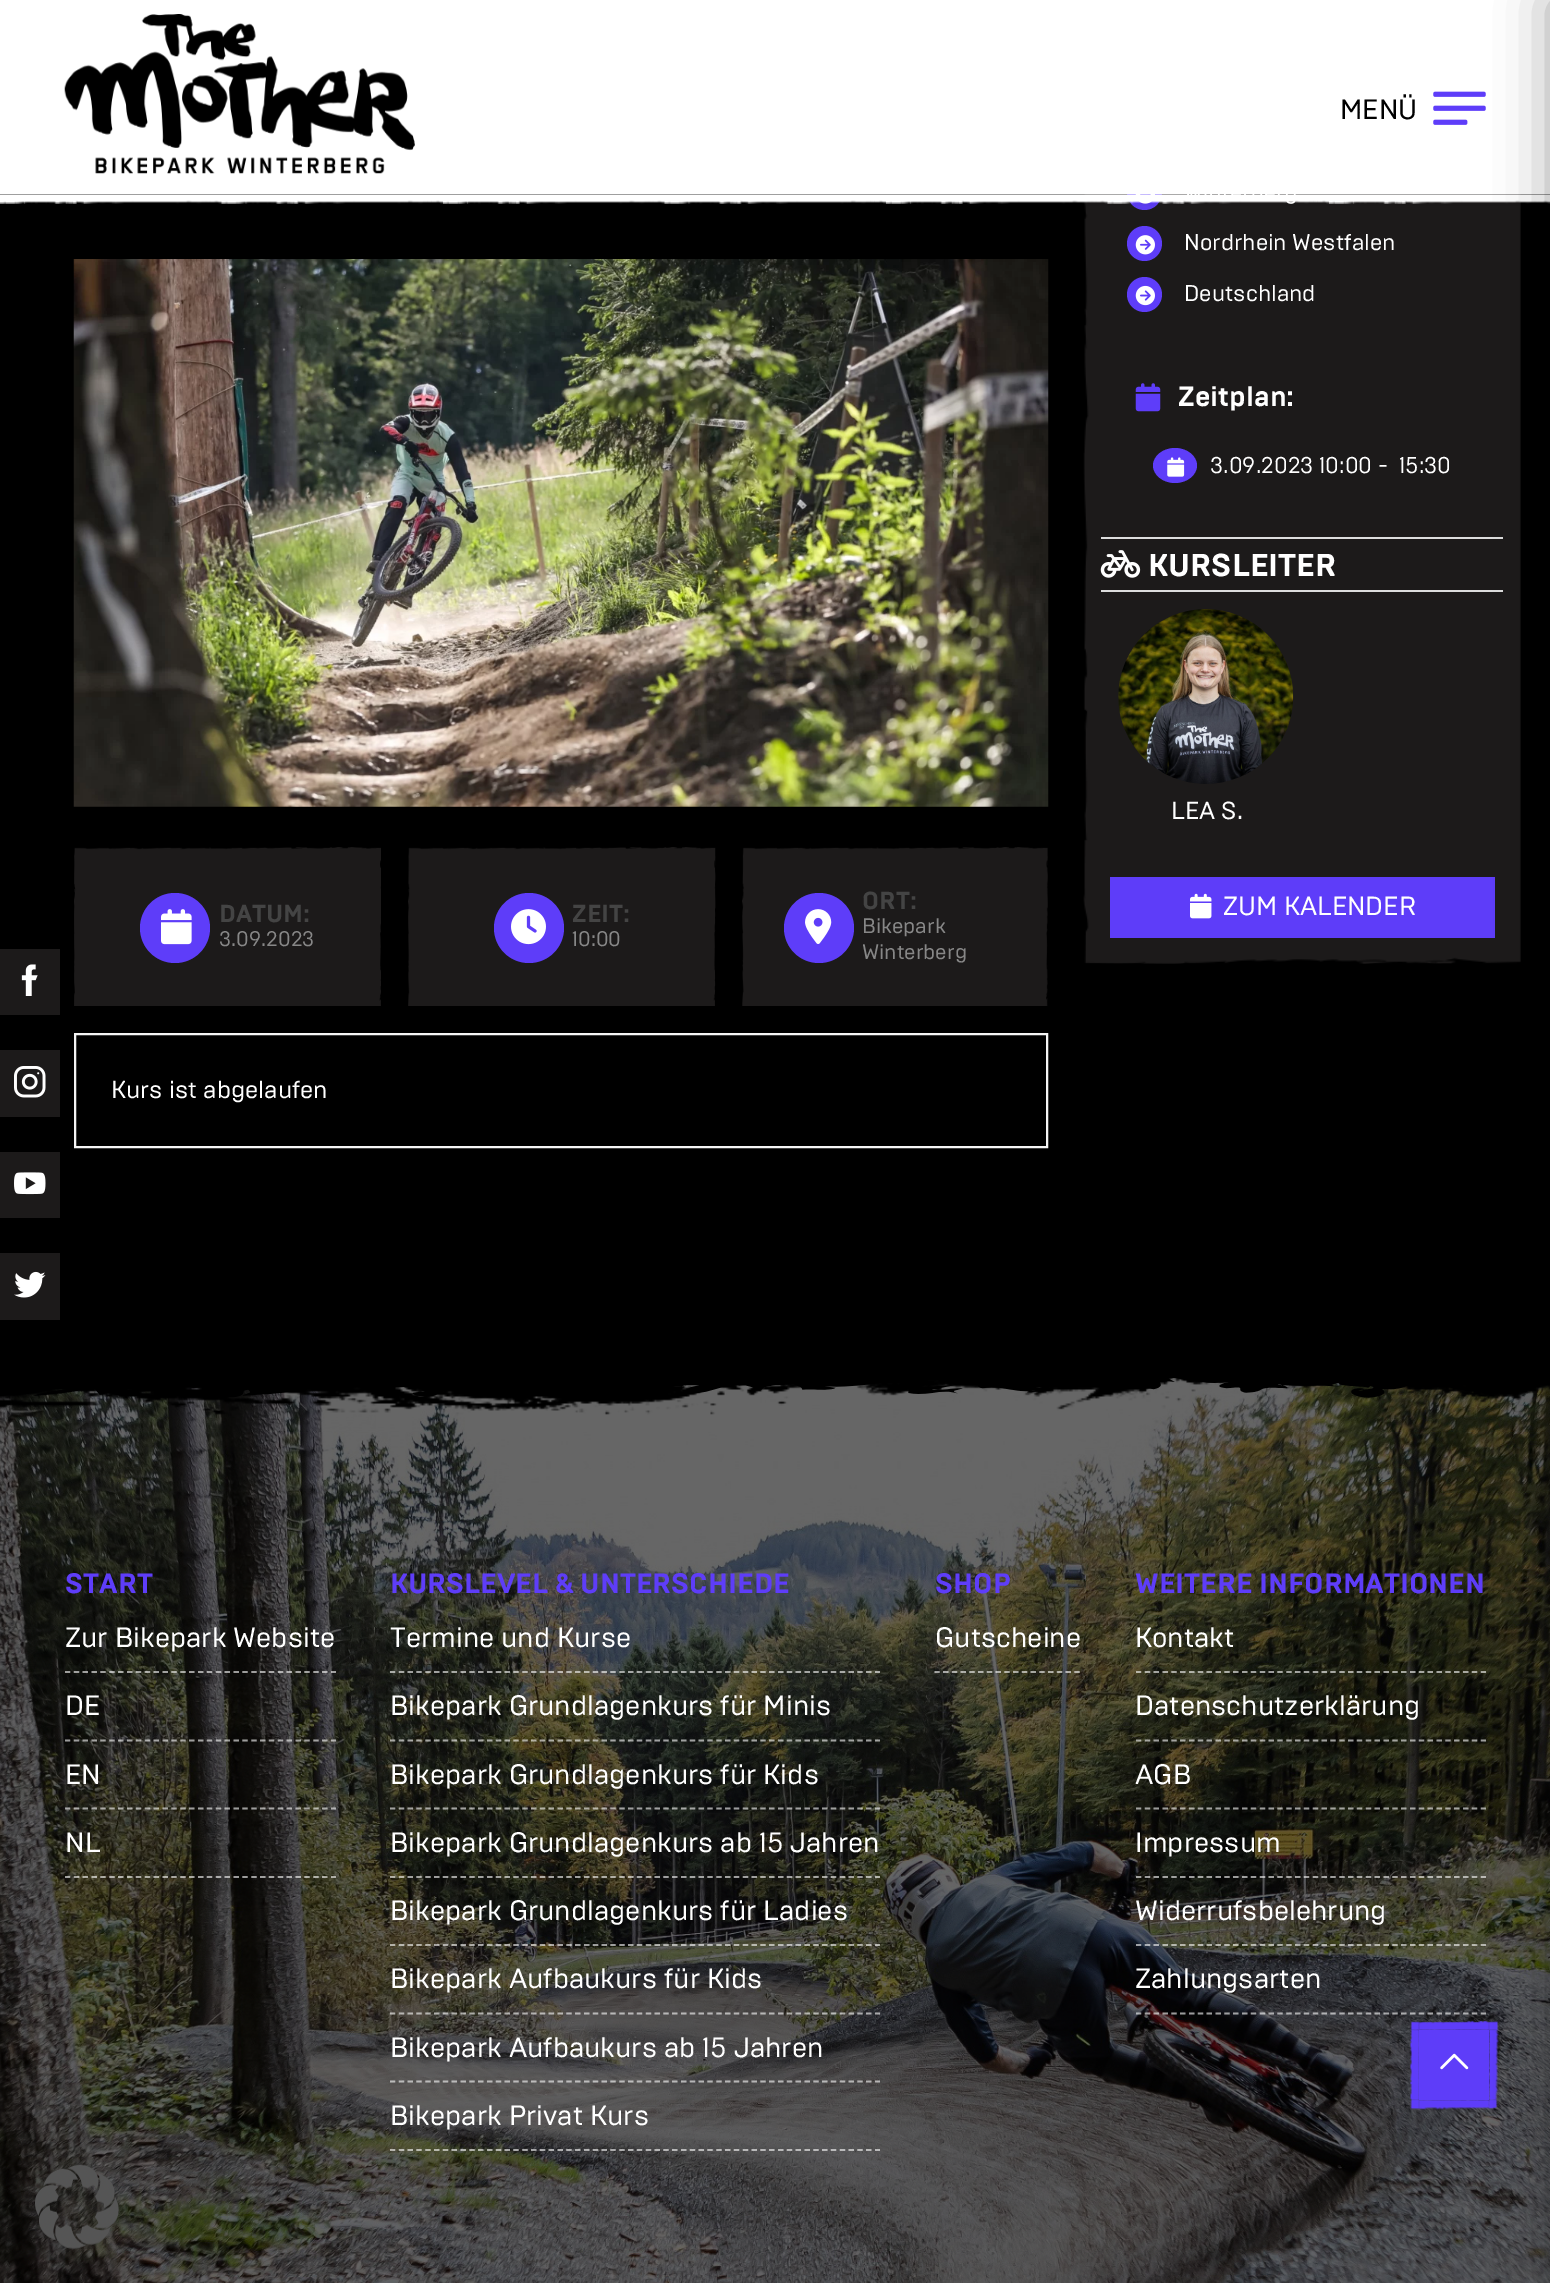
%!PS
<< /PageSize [1550 2283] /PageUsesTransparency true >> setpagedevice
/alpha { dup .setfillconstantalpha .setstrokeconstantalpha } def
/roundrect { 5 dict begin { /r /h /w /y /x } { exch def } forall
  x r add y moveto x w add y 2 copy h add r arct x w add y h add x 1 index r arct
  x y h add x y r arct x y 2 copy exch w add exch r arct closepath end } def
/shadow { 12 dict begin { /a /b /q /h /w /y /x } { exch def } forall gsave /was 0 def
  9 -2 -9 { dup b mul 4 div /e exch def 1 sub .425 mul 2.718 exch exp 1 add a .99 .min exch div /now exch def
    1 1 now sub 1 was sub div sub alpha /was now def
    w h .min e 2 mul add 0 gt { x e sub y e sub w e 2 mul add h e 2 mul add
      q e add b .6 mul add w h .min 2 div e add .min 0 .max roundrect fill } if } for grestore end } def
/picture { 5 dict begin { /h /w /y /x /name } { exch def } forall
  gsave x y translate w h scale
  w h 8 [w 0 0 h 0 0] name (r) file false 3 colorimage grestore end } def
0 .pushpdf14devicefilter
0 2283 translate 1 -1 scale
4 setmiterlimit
0 setgray
0 0 1550 2283 rectfill
(img8.rgb) 1083 194 438 770 picture
0.369 0.239 0.976 setrgbcolor
newpath 1144.5 192.5 17.5 0 360 arc closepath fill
(img9.rgb) 1135 194 20 10 picture
newpath 1144.5 243.5 17.5 0 360 arc closepath fill
(img10.rgb) 1135 235 20 20 picture
gsave
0 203 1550 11 rectclip
0 setgray
0 -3 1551 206 0 13 0.1 shadow
grestore
(img1.rgb) 0 194 1550 10 picture
1 setgray
0 0 1550 194 rectfill
(img2.rgb) 64 14 351 160 picture
/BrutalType-Regular [28 0 0 -28 0 0] selectfont
0 setgray
1340 119 moveto (MENÜ) show
(img3.rgb) 1433 91 53 34 picture
0.867 setgray
1101 537 402 2 rectfill
1101 590 402 2 rectfill
0.369 0.239 0.976 setrgbcolor
1110 877 385 61 rectfill
(img25.rgb) 0 1377 1550 906 picture
(img24.rgb) 0 1377 1550 39 picture
0.6 alpha
1 setgray
1.8 setlinewidth
[5.25 3.59] 0 setdash
newpath 1136 1672 moveto 1486 1672 lineto stroke
newpath 1136 1740.5 moveto 1486 1740.5 lineto stroke
newpath 1136 1808.5 moveto 1486 1808.5 lineto stroke
newpath 1136 1877 moveto 1486 1877 lineto stroke
newpath 1136 1945 moveto 1486 1945 lineto stroke
newpath 1136 2013.5 moveto 1486 2013.5 lineto stroke
1 alpha
(img26.rgb) 1410 2021 89 89 picture
0.369 0.239 0.976 setrgbcolor
1419 2030 70 70 rectfill
0 setgray
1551 0 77 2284 0 26 0.35 shadow
0.11 0.102 0.102 setrgbcolor
0 949 60 66 rectfill
(img4.rgb) 21 964 17 32 picture
0 1050 60 67 rectfill
(img5.rgb) 14 1066 32 32 picture
0 1152 60 66 rectfill
(img6.rgb) 14 1172 32 23 picture
0 1253 60 67 rectfill
(img7.rgb) 14 1271 32 27 picture
/BrutalType-Regular [22.75 0 0 -22.75 0 0] selectfont
1 setgray
1184 250 moveto (Nordrhein Westfalen) show
0.369 0.239 0.976 setrgbcolor
newpath 1144.5 294.5 17.5 0 360 arc closepath fill
(img11.rgb) 1135 285 20 21 picture
1 setgray
1184 301 moveto (Deutschland) show
(img12.rgb) 1135 383 26 29 picture
/BrutalType-Bold [28 0 0 -28 0 0] selectfont
1178 406 moveto (Zeitplan:) show
0.369 0.239 0.976 setrgbcolor
newpath 1175 448 moveto 1187 448 1197 456 1197 465.5 curveto 1197 475 1187 483 1175 483 curveto 1163 483 1153 475 1153 465.5 curveto 1153 456 1163 448 1175 448 curveto closepath fill
(img13.rgb) 1167 457 18 20 picture
/BrutalType-Regular [22.75 0 0 -22.75 0 0] selectfont
1 setgray
1210 473 moveto (3.09.2023 10:00 -) show
1399 473 moveto (15:30) show
(img14.rgb) 1100 550 41 28 picture
/BrutalType-Bold [31.5 0 0 -31.5 0 0] selectfont
1148 576 moveto (KURSLEITER) show
(img15.rgb) 1118 609 176 175 picture
/BrutalType-Regular [24.5 0 0 -24.5 0 0] selectfont
1171 819 moveto (LEA S.) show
(img16.rgb) 1190 893 22 26 picture
/BrutalType-Regular [26.25 0 0 -26.25 0 0] selectfont
1223 915 moveto (ZUM KALENDER) show
(img17.rgb) 73 259 976 548 picture
(img18.rgb) 74 847 307 159 picture
0.369 0.239 0.976 setrgbcolor
newpath 175 928 35 0 360 arc closepath fill
(img19.rgb) 161 909 31 36 picture
/BrutalType-Bold [24.5 0 0 -24.5 0 0] selectfont
0.267 setgray
219 922 moveto (DATUM:) show
/BrutalType-Regular [21 0 0 -21 0 0] selectfont
0.529 setgray
219 946 moveto (3.09.2023) show
(img20.rgb) 408 847 308 159 picture
0.369 0.239 0.976 setrgbcolor
newpath 529 928 35 0 360 arc closepath fill
(img21.rgb) 511 909 35 36 picture
/BrutalType-Bold [24.5 0 0 -24.5 0 0] selectfont
0.267 setgray
572 922 moveto (ZEIT:) show
/BrutalType-Regular [21 0 0 -21 0 0] selectfont
0.529 setgray
572 946 moveto (10:00) show
(img22.rgb) 742 847 306 159 picture
0.369 0.239 0.976 setrgbcolor
newpath 819 928 35 0 360 arc closepath fill
(img23.rgb) 805 909 27 35 picture
/BrutalType-Bold [24.5 0 0 -24.5 0 0] selectfont
0.267 setgray
862 909 moveto (ORT:) show
/BrutalType-Regular [21 0 0 -21 0 0] selectfont
0.529 setgray
862 933 moveto (Bikepark) show
862 959 moveto (Winterberg) show
0.961 setgray
2 setlinewidth
[] 0 setdash
75 1034 972 113 rectstroke
/BrutalType-Regular [24.5 0 0 -24.5 0 0] selectfont
1 setgray
111 1098 moveto (Kurs ist abgelaufen) show
/BrutalType-Bold [28 0 0 -28 0 0] selectfont
0.369 0.239 0.976 setrgbcolor
65 1593 moveto (START) show
0.6 alpha
1 setgray
1.8 setlinewidth
[5.25 3.62] 0 setdash
newpath 65 1672 moveto 336 1672 lineto stroke
/BrutalType-Regular [28 0 0 -28 0 0] selectfont
1 alpha
65 1647 moveto (Zur Bikepark Website) show
0.6 alpha
newpath 65 1740.5 moveto 336 1740.5 lineto stroke
1 alpha
65 1715 moveto (DE) show
0.6 alpha
newpath 65 1808.5 moveto 336 1808.5 lineto stroke
1 alpha
65 1784 moveto (EN) show
0.6 alpha
newpath 65 1877 moveto 336 1877 lineto stroke
1 alpha
65 1852 moveto (NL) show
/BrutalType-Bold [28 0 0 -28 0 0] selectfont
0.369 0.239 0.976 setrgbcolor
390 1593 moveto (KURSLEVEL & UNTERSCHIEDE) show
0.6 alpha
1 setgray
[5.25 3.57] 0 setdash
newpath 390 1672 moveto 880 1672 lineto stroke
/BrutalType-Regular [28 0 0 -28 0 0] selectfont
1 alpha
390 1647 moveto (Termine und Kurse) show
0.6 alpha
newpath 390 1740.5 moveto 880 1740.5 lineto stroke
1 alpha
390 1715 moveto (Bikepark Grundlagenkurs für Minis) show
0.6 alpha
newpath 390 1808.5 moveto 880 1808.5 lineto stroke
1 alpha
390 1784 moveto (Bikepark Grundlagenkurs für Kids) show
0.6 alpha
newpath 390 1877 moveto 880 1877 lineto stroke
1 alpha
390 1852 moveto (Bikepark Grundlagenkurs ab 15 Jahren) show
0.6 alpha
newpath 390 1945 moveto 880 1945 lineto stroke
1 alpha
390 1920 moveto (Bikepark Grundlagenkurs für Ladies) show
0.6 alpha
newpath 390 2013.5 moveto 880 2013.5 lineto stroke
1 alpha
390 1988 moveto (Bikepark Aufbaukurs für Kids) show
0.6 alpha
newpath 390 2081.5 moveto 880 2081.5 lineto stroke
1 alpha
390 2057 moveto (Bikepark Aufbaukurs ab 15 Jahren) show
0.6 alpha
newpath 390 2150 moveto 880 2150 lineto stroke
1 alpha
390 2125 moveto (Bikepark Privat Kurs) show
/BrutalType-Bold [28 0 0 -28 0 0] selectfont
0.369 0.239 0.976 setrgbcolor
935 1593 moveto (SHOP) show
0.6 alpha
1 setgray
[5.25 3.5] 0 setdash
newpath 934.5 1672 moveto 1080 1672 lineto stroke
/BrutalType-Regular [28 0 0 -28 0 0] selectfont
1 alpha
935 1647 moveto (Gutscheine) show
/BrutalType-Bold [28 0 0 -28 0 0] selectfont
0.369 0.239 0.976 setrgbcolor
1135 1593 moveto (WEITERE INFORMATIONEN) show
/BrutalType-Regular [28 0 0 -28 0 0] selectfont
1 setgray
1135 1647 moveto (Kontakt) show
1135 1715 moveto (Datenschutzerklärung) show
1135 1784 moveto (AGB) show
1135 1852 moveto (Impressum) show
1135 1920 moveto (Widerrufsbelehrung) show
1135 1988 moveto (Zahlungsarten) show
(img27.rgb) 1440 2053 29 17 picture
(img28.rgb) 34 2164 87 85 picture
.poppdf14devicefilter showpage
